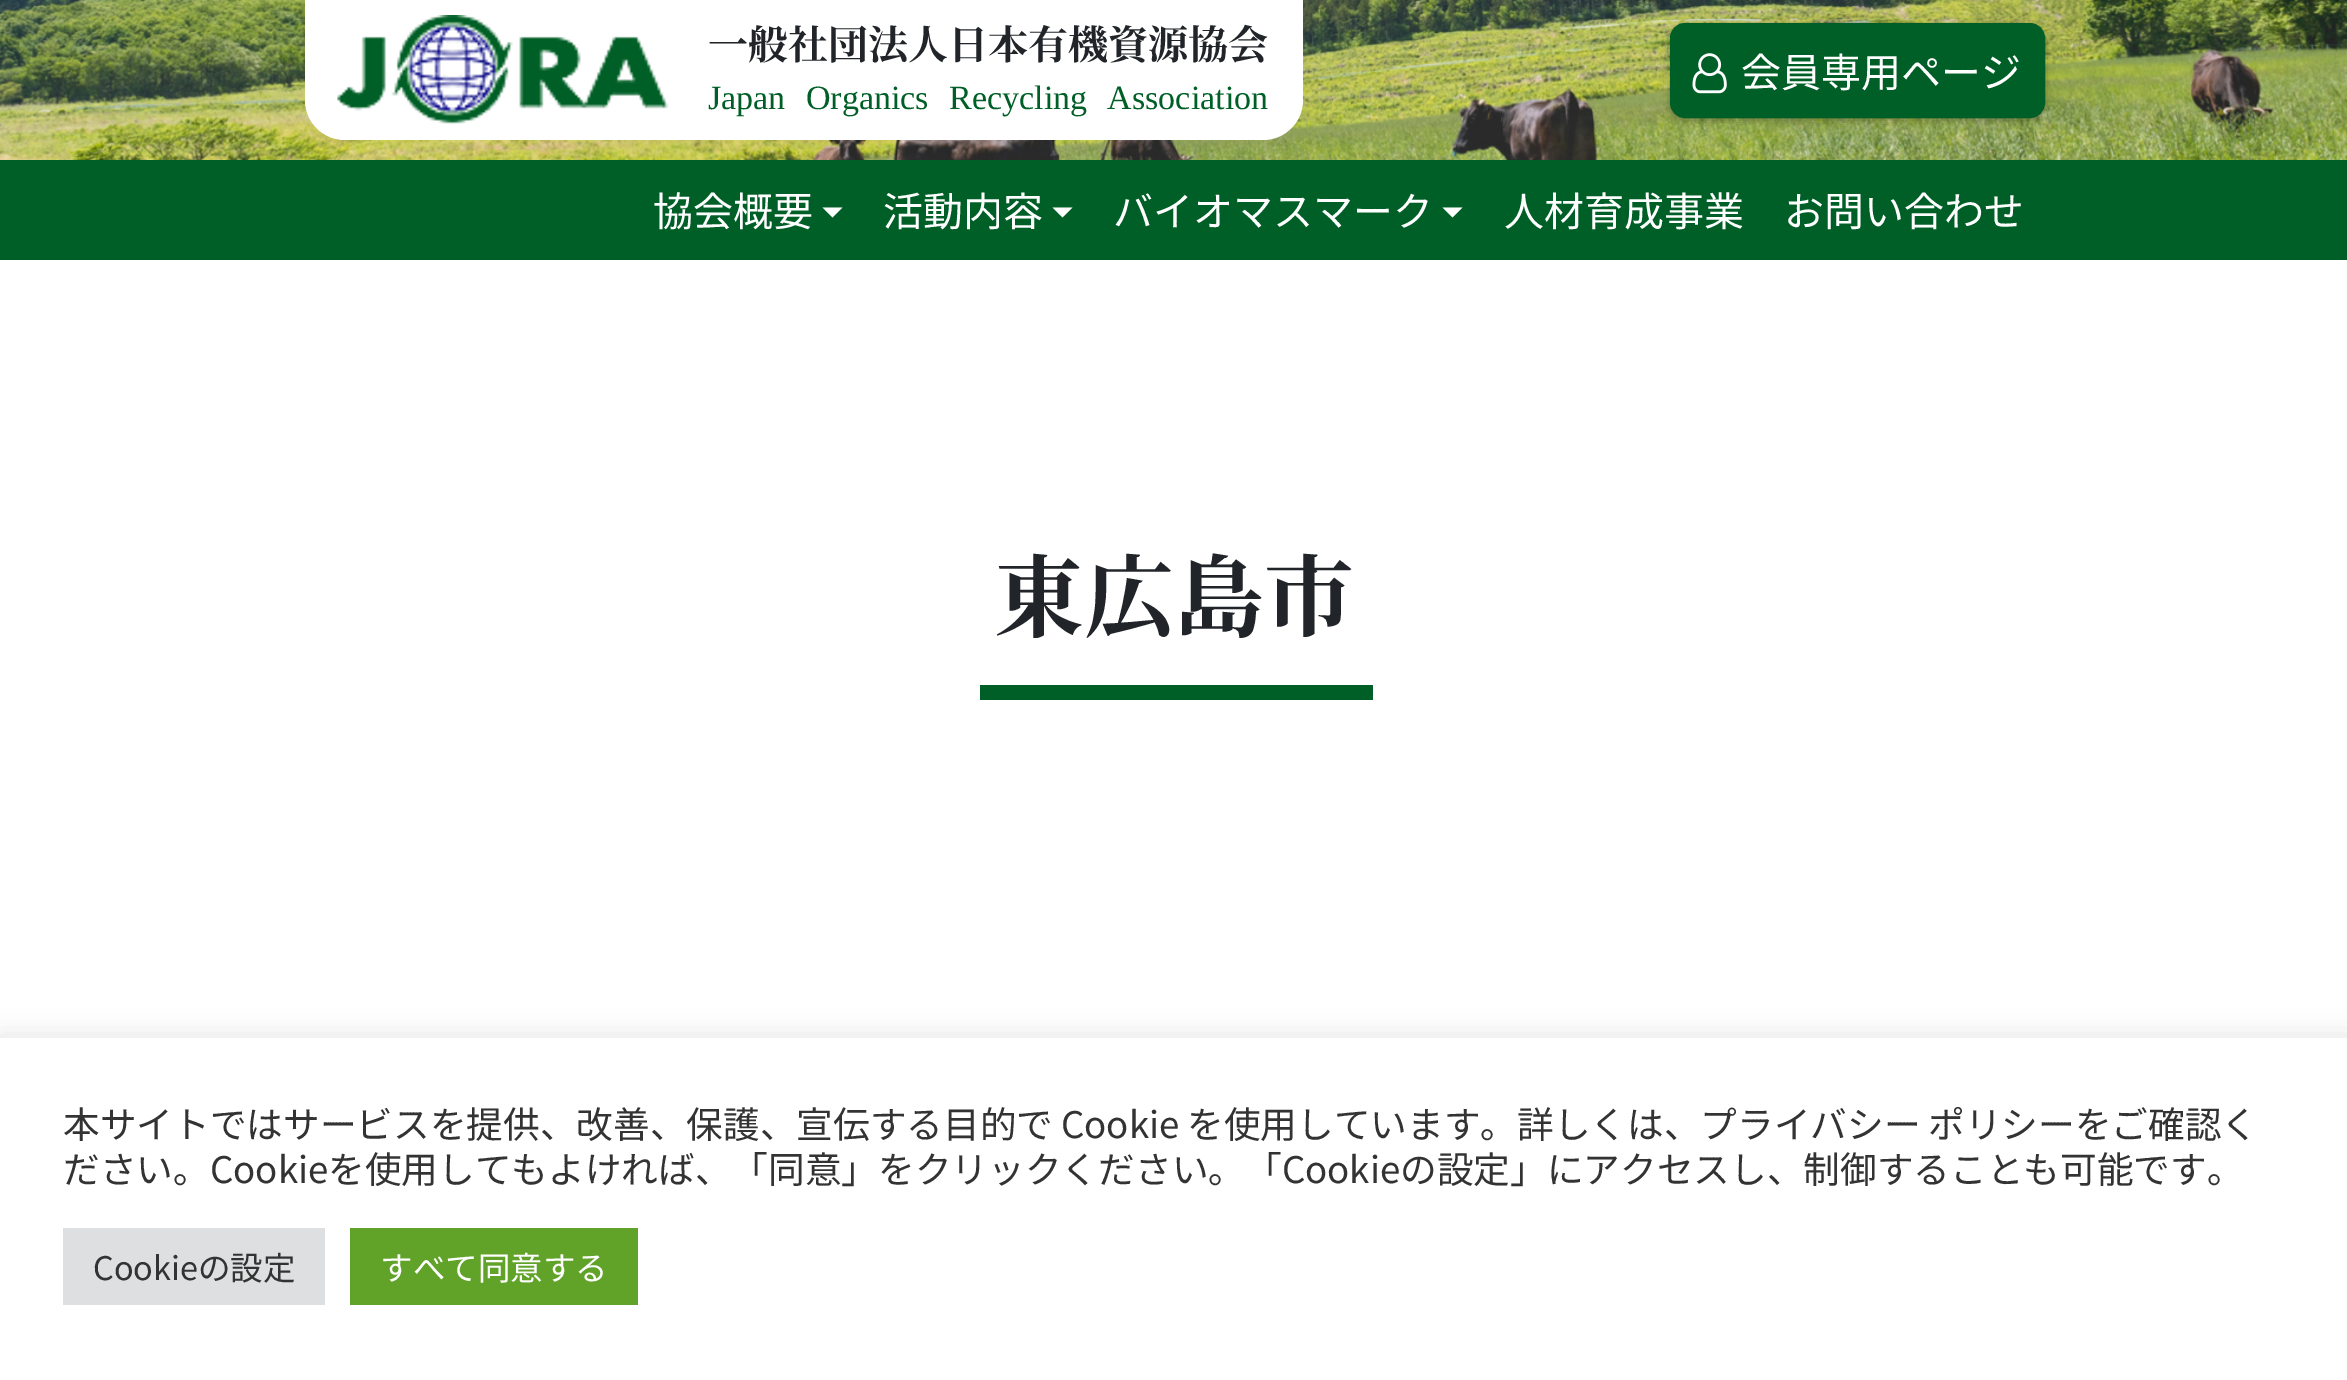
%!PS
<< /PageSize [2347 1380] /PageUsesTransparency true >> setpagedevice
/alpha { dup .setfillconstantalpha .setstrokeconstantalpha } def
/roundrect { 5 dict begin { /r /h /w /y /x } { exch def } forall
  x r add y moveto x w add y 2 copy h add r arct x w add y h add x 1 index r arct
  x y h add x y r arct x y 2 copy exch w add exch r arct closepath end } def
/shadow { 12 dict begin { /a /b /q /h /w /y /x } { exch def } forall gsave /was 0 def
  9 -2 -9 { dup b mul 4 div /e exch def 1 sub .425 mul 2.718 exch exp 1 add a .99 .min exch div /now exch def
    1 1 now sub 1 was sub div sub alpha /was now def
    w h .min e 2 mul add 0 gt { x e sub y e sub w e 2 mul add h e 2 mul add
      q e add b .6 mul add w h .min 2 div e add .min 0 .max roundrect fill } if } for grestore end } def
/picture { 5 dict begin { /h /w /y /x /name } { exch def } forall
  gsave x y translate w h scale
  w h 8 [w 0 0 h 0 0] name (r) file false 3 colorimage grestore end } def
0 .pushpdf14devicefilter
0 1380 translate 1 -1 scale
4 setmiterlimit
1 setgray
0 0 2347 1380 rectfill
(img1.rgb) 0 0 2347 160 picture
newpath 305 0 moveto 1303 0 lineto 1303 100 lineto 1303 122 1285 140 1263 140 curveto 345 140 lineto 323 140 305 122 305 100 curveto closepath fill
(img2.rgb) 337 15 332 109 picture
/NotoSerifJP-ExtraLight [40 0 0 -40 0 0] selectfont
0.129 0.145 0.161 setrgbcolor
708 59 moveto (一般社団法人日本有機資源協会) show
/LiberationSerif-Regular [34 0 0 -34 0 0] selectfont
0 0.373 0.149 setrgbcolor
708 109 moveto 12 0 32 (Japan Organics Recycling Association) widthshow
0 setgray
1670 25 375 95 15 4 0.3 shadow
0 0.373 0.149 setrgbcolor
1671.5 24.5 372 92 13.5 roundrect gsave fill grestore
3 setlinewidth
stroke
(img3.rgb) 1692 53 35 41 picture
/NotoSansJP-Regular [40 0 0 -40 0 0] selectfont
1 setgray
1741 87 moveto (会員専用ページ) show
0 0.373 0.149 setrgbcolor
0 160 2347 100 rectfill
1 setgray
653 226 moveto (協会概要) show
newpath 822.5 207.5 moveto 842.5 207.5 lineto 832.5 217.5 lineto closepath fill
883 226 moveto (活動内容) show
newpath 1052.5 207.5 moveto 1072.5 207.5 lineto 1062.5 217.5 lineto closepath fill
1113 226 moveto (バイオマスマーク) show
newpath 1442.5 207.5 moveto 1462.5 207.5 lineto 1452.5 217.5 lineto closepath fill
1504 226 moveto (人材育成事業) show
1784 226 moveto (お問い合わせ) show
/NotoSerifJP-ExtraLight [90 0 0 -90 0 0] selectfont
0.129 0.145 0.161 setrgbcolor
994 630 moveto (東広島市) show
0 0.373 0.149 setrgbcolor
980 685 393 15 rectfill
0.675 0.671 0.671 setrgbcolor
0 1035 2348 343 0 12.5 0.3 shadow
1 setgray
0 1038 2347 342 rectfill
/NotoSansJP-Regular [36.67 0 0 -36.67 0 0] selectfont
0.2 setgray
63 1138 moveto -0.5 0 32 (本サイトではサービスを提供、改善、保護、宣伝する目的で Cookie を使用しています。詳しくは、プライバシー ポリシーをご確認く) widthshow
63 1183 moveto (ださい。Cookieを使用してもよければ、「同意」をクリックください。「Cookieの設定」にアクセスし、制御することも可能です。) show
0.871 0.875 0.878 setrgbcolor
63 1228 262 77 rectfill
/NotoSansJP-Regular [32.5 0 0 -32.5 0 0] selectfont
0.2 setgray
93 1280 moveto (Cookieの設定) show
0.38 0.635 0.161 setrgbcolor
350 1228 288 77 rectfill
1 setgray
380 1280 moveto (すべて同意する) show
.poppdf14devicefilter showpage
